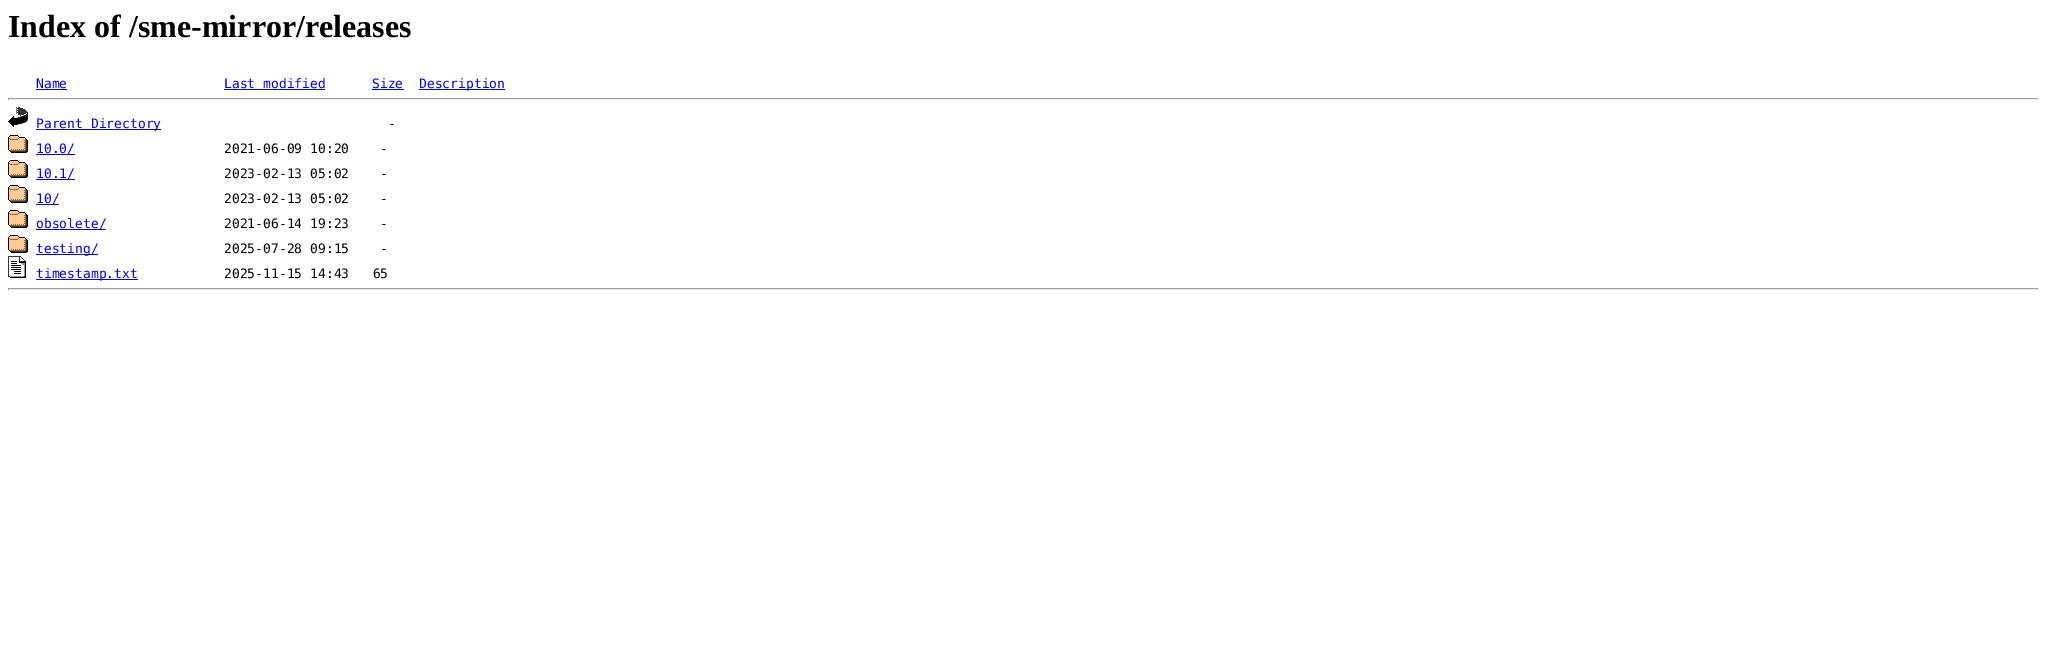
%!PS
<< /PageSize [2047 667] >> setpagedevice
/picture { 5 dict begin { /h /w /y /x /name } { exch def } forall
  gsave x y translate w h scale
  w h 8 [w 0 0 h 0 0] name (r) file false 3 colorimage grestore end } def
0 667 translate 1 -1 scale
4 setmiterlimit
1 setgray
0 0 2047 667 rectfill
/LiberationSerif-Bold [32 0 0 -32 0 0] selectfont
0 setgray
8 37 moveto (Index of /sme-mirror/releases) show
/DejaVuSansMono-Regular [13 0 0 -13 0 0] selectfont
0 0 0.933 setrgbcolor
36 88 moveto (Name) show
36 89 31 1 rectfill
224 88 moveto (Last modified) show
224 89 101 1 rectfill
372 88 moveto (Size) show
372 89 32 1 rectfill
419 89 86 1 rectfill
419 88 moveto (Description) show
0.624 setgray
8 98 2031 1 rectfill
0.933 setgray
2038 98 1 2 rectfill
8 99 2031 1 rectfill
0.624 setgray
8 98 1 2 rectfill
(img1.rgb) 8 107 20 20 picture
0 0 0.933 setrgbcolor
36 129 125 1 rectfill
36 128 moveto (Parent Directory) show
0 setgray
388 128 moveto (-) show
(img2.rgb) 8 135 20 18 picture
0 0 0.933 setrgbcolor
36 154 39 1 rectfill
36 153 moveto (10.0/) show
0 setgray
224 153 moveto (2021-06-09 10:20    -) show
(img2.rgb) 8 160 20 18 picture
0 0 0.933 setrgbcolor
36 179 39 1 rectfill
36 178 moveto (10.1/) show
0 setgray
224 178 moveto (2023-02-13 05:02    -) show
(img2.rgb) 8 185 20 18 picture
0 0 0.933 setrgbcolor
36 204 23 1 rectfill
36 203 moveto (10/) show
0 setgray
224 203 moveto (2023-02-13 05:02    -) show
(img2.rgb) 8 210 20 18 picture
0 0 0.933 setrgbcolor
36 229 70 1 rectfill
36 228 moveto (obsolete/) show
0 setgray
224 228 moveto (2021-06-14 19:23    -) show
(img2.rgb) 8 235 20 18 picture
0 0 0.933 setrgbcolor
36 254 62 1 rectfill
36 253 moveto (testing/) show
0 setgray
224 253 moveto (2025-07-28 09:15    -) show
(img3.rgb) 8 256 18 22 picture
0 0 0.933 setrgbcolor
36 279 102 1 rectfill
36 278 moveto (timestamp.txt) show
0 setgray
224 278 moveto (2025-11-15 14:43   65) show
0.624 setgray
8 288 2031 1 rectfill
0.933 setgray
2038 288 1 2 rectfill
8 289 2031 1 rectfill
0.624 setgray
8 288 1 2 rectfill
showpage
